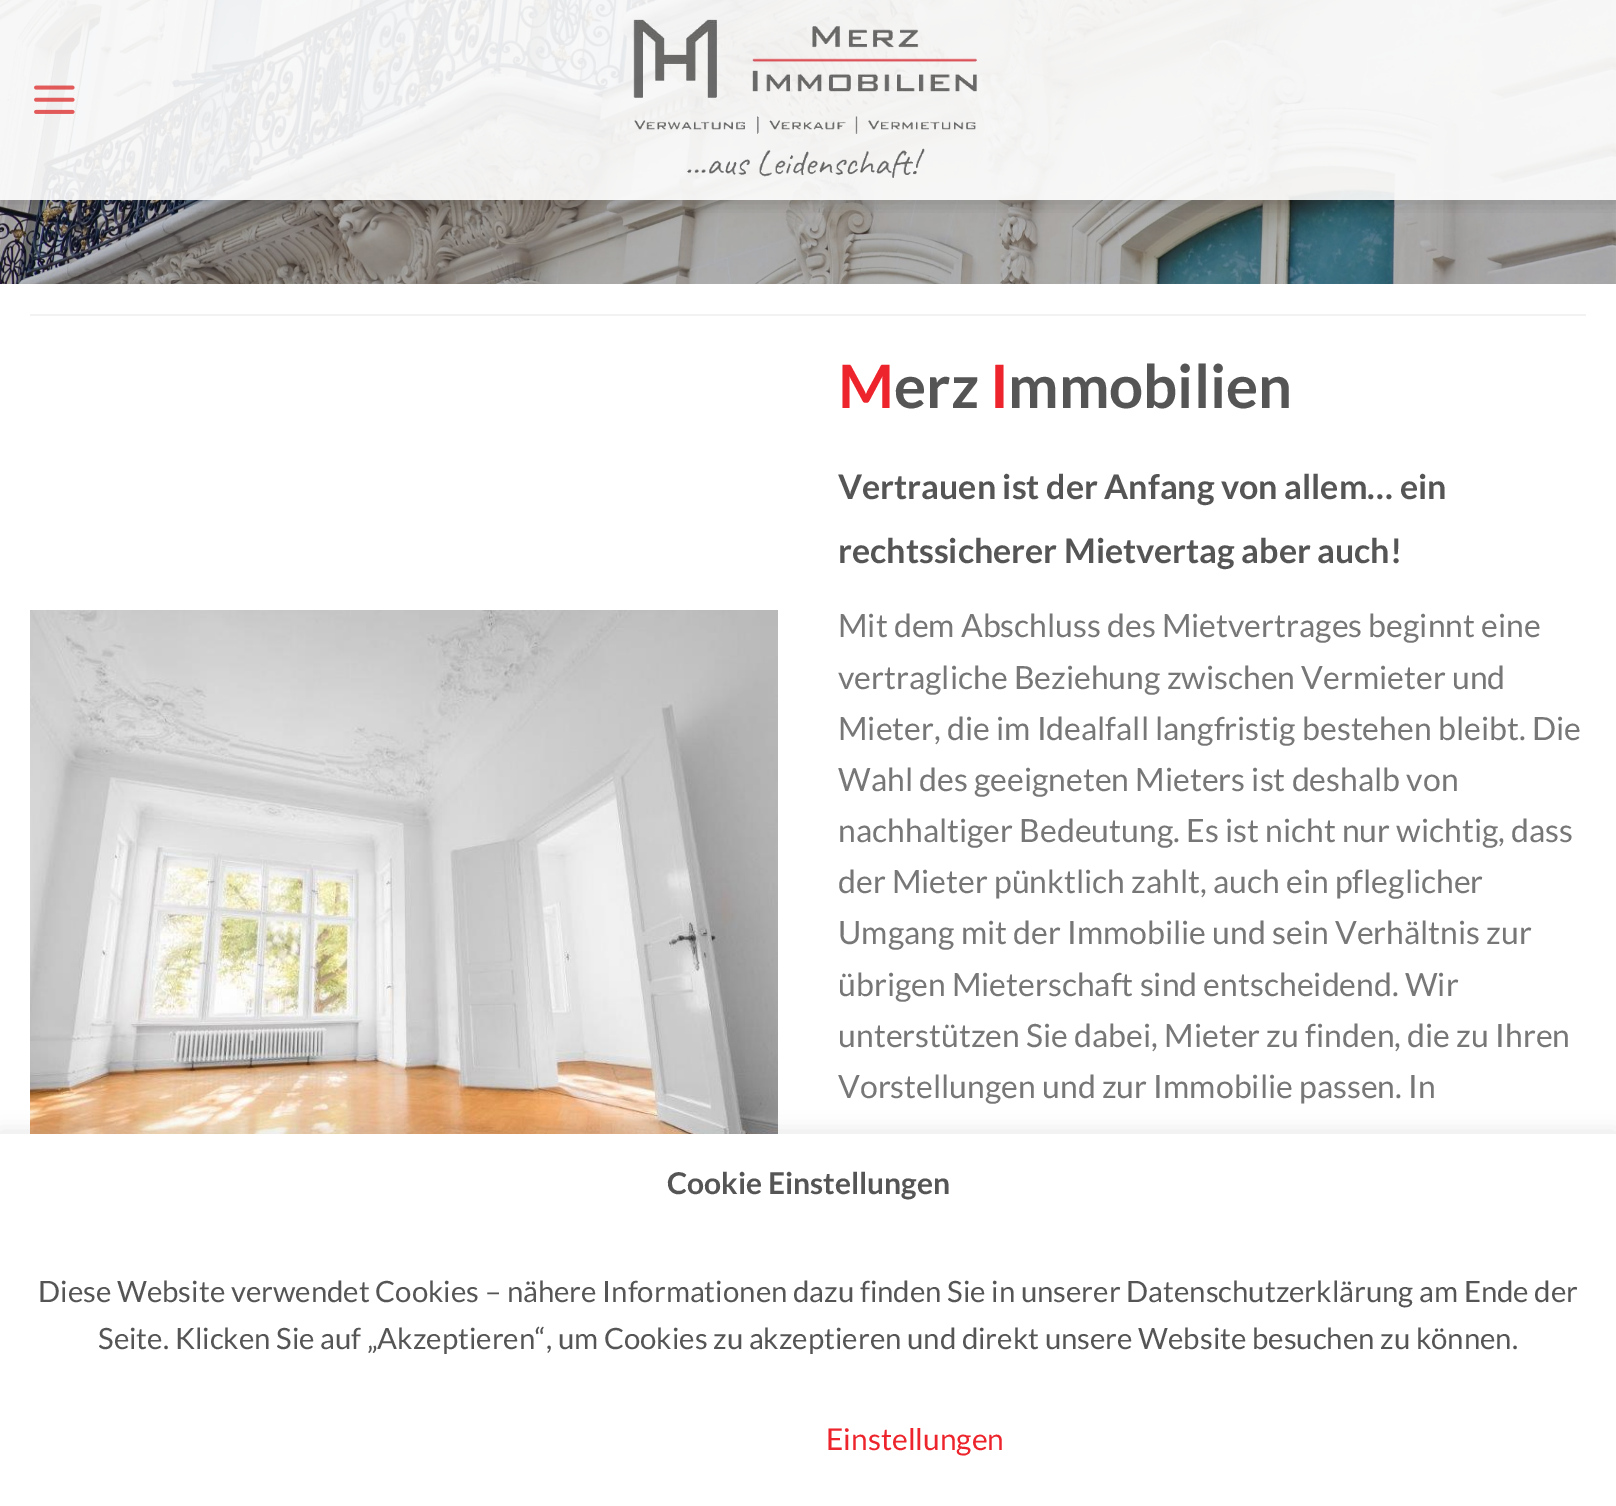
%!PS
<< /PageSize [1616 1506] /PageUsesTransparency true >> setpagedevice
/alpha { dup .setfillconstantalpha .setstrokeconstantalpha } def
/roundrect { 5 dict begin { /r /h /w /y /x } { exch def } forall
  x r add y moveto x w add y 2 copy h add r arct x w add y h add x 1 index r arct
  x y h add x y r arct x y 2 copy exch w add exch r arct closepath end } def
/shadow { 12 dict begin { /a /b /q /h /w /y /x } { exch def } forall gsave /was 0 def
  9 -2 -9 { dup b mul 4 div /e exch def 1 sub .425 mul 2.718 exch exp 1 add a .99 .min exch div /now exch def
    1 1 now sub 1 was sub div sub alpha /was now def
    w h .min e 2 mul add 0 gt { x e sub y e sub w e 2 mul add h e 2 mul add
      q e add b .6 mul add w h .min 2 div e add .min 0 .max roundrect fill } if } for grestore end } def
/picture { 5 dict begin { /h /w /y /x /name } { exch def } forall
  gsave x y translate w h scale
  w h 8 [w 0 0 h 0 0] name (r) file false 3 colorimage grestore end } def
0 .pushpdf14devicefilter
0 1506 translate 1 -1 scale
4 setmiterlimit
1 setgray
0 0 1616 1506 rectfill
(img3.rgb) 0 0 1616 284 picture
gsave
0 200 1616 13 rectclip
0 setgray
2 2 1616 200 0 10 0.15 shadow
grestore
0.9 alpha
0 0 1616 200 rectfill
1 alpha
(img1.rgb) 34 85 41 29 picture
(img2.rgb) 633 19 344 159 picture
0.949 setgray
30 314 1556 2 rectfill
(img4.rgb) 30 610 748 524 picture
/Lato-Bold [60 0 0 -60 0 0] selectfont
0.929 0.141 0.173 setrgbcolor
838 408 moveto (M) show
0.333 setgray
894 408 moveto (erz) show
0.929 0.141 0.173 setrgbcolor
990 408 moveto (I) show
0.333 setgray
1008 408 moveto (mmobilien) show
/Lato-Bold [34 0 0 -34 0 0] selectfont
838 499 moveto (Vertrauen ist der Anfang von allem… ein) show
838 563 moveto (rechtssicherer Mietvertag aber auch!) show
/Lato-Regular [32 0 0 -32 0 0] selectfont
0.467 setgray
838 637 moveto (Mit dem Abschluss des Mietvertrages beginnt eine) show
838 689 moveto (vertragliche Beziehung zwischen Vermieter und) show
838 740 moveto (Mieter, die im Idealfall langfristig bestehen bleibt. Die) show
838 791 moveto (Wahl des geeigneten Mieters ist deshalb von) show
838 842 moveto (nachhaltiger Bedeutung. Es ist nicht nur wichtig, dass) show
838 893 moveto (der Mieter pünktlich zahlt, auch ein pfleglicher) show
838 944 moveto (Umgang mit der Immobilie und sein Verhältnis zur) show
838 996 moveto (übrigen Mieterschaft sind entscheidend. Wir) show
838 1047 moveto (unterstützen Sie dabei, Mieter zu finden, die zu Ihren) show
838 1098 moveto (Vorstellungen und zur Immobilie passen. In) show
0.675 0.671 0.671 setrgbcolor
0 1132 1616 372 0 10 0.3 shadow
1 setgray
0 1134 1616 372 rectfill
/Lato-Bold [30 0 0 -30 0 0] selectfont
0.333 setgray
667 1194 moveto (Cookie Einstellungen) show
/Lato-Regular [29.33 0 0 -29.33 0 0] selectfont
38 1302 moveto (Diese Website verwendet Cookies – nähere Informationen dazu finden Sie in unserer Datenschutzerklärung am Ende der) show
98 1349 moveto (Seite. Klicken Sie auf „Akzeptieren“, um Cookies zu akzeptieren und direkt unsere Website besuchen zu können.) show
/Lato-Regular [30 0 0 -30 0 0] selectfont
0.929 0.141 0.173 setrgbcolor
826 1450 moveto (Einstellungen) show
.poppdf14devicefilter showpage
